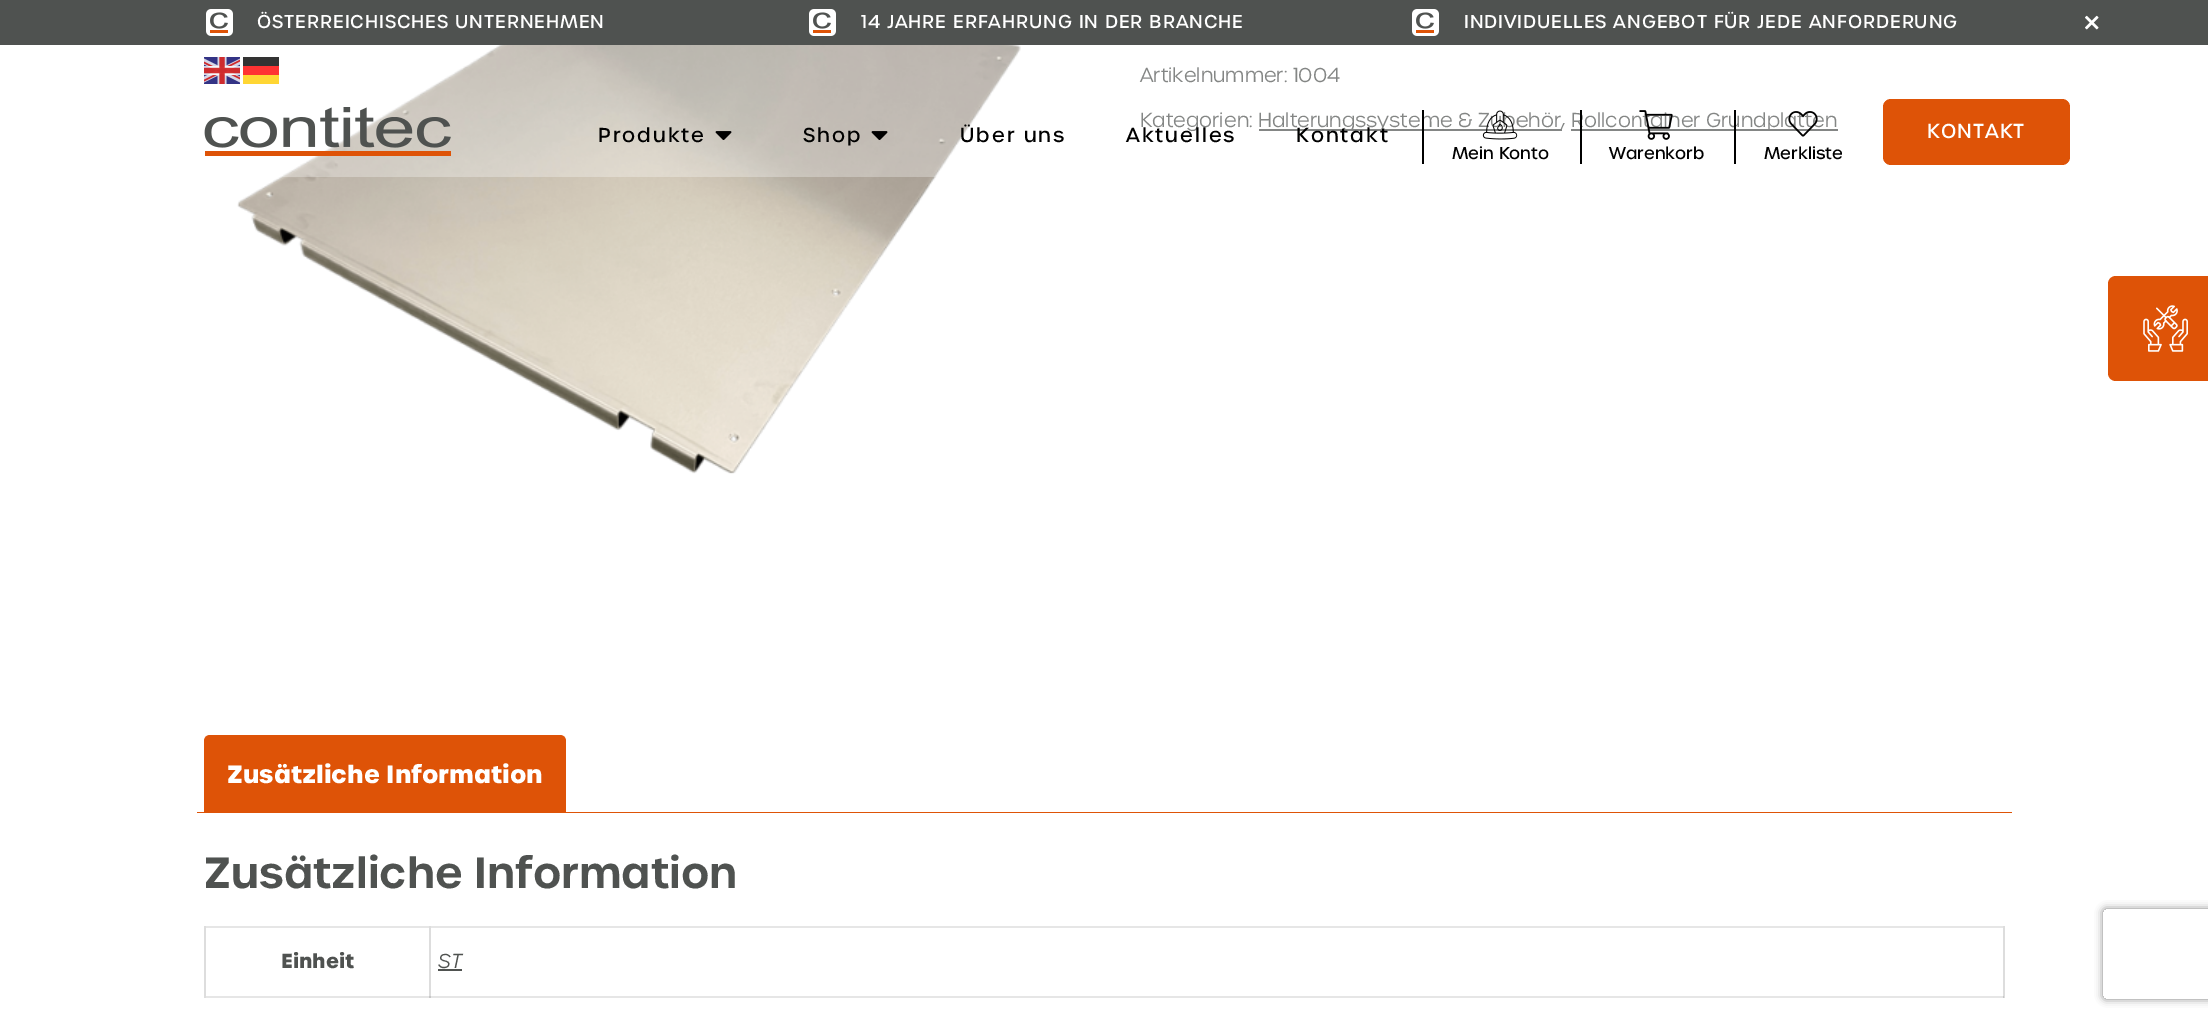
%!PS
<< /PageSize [2208 1020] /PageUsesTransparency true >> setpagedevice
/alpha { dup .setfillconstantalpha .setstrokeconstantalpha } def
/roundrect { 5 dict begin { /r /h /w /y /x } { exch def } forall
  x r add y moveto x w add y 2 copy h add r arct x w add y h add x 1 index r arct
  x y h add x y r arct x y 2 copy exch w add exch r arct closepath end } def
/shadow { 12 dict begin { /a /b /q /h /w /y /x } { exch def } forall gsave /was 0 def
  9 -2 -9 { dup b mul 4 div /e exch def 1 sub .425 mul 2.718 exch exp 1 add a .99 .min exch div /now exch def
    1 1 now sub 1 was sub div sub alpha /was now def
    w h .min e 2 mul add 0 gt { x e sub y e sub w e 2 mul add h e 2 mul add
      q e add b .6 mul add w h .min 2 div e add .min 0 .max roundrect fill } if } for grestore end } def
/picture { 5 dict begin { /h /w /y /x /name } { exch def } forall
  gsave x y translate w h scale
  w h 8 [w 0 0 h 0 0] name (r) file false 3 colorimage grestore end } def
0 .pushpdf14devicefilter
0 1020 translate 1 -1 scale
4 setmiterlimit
1 setgray
0 0 2208 1020 rectfill
0.902 setgray
204 996 1800 2 rectfill
0.31 0.322 0.314 setrgbcolor
0 0 2208 45 rectfill
(img1.rgb) 206 9 27 27 picture
/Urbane-Medium [18 0 0 -18 0 0] selectfont
1 setgray
257 28 moveto 0.9 0 (ÖSTERREICHISCHES UNTERNEHMEN) ashow
(img1.rgb) 809 9 27 27 picture
861 28 moveto 0.9 0 (14 JAHRE ERFAHRUNG IN DER BRANCHE) ashow
(img1.rgb) 1412 9 27 27 picture
1464 28 moveto 0.9 0 (INDIVIDUELLES ANGEBOT FÜR JEDE ANFORDERUNG) ashow
(img2.rgb) 2085 15 14 15 picture
(img10.rgb) 237 45 784 429 picture
(img3.rgb) 204 57 36 27 picture
0.2 setgray
243 57 36 9 rectfill
1 0.2 0.2 setrgbcolor
243 66 36 9 rectfill
1 0.839 0.2 setrgbcolor
243 75 36 9 rectfill
/Urbane-Light [19.5 0 0 -19.5 0 0] selectfont
0.31 0.322 0.314 setrgbcolor
1140 82 moveto (Artikelnummer: 1004) show
1140 127 moveto (Kategorien:) show
1259 129 303 2 rectfill
1258 127 moveto (Halterungssysteme & Zubehör,) show
1571 129 267 2 rectfill
1571 127 moveto (Rollcontainer Grundplatten) show
0.3 alpha
1 setgray
281 45 1557 132 rectfill
1 alpha
(img4.rgb) 204 107 247 49 picture
/Urbane-Medium [19.5 0 0 -19.5 0 0] selectfont
0 setgray
598 142 moveto 2 0 (Produkte) ashow
(img5.rgb) 715 131 17 9 picture
803 142 moveto 2 0 (Shop) ashow
(img6.rgb) 871 131 17 9 picture
960 142 moveto 2 0 (Über uns) ashow
1126 142 moveto 2 0 (Aktuelles) ashow
1296 142 moveto 2 0 (Kontakt) ashow
0.871 0.325 0.027 setrgbcolor
1883 99 187 66 8 roundrect fill
1 setgray
1927 138 moveto 1 0 (KONTAKT) ashow
0 setgray
1422 110 2 54 rectfill
(img7.rgb) 1482 110 36 30 picture
/Urbane-Medium [16.5 0 0 -16.5 0 0] selectfont
1452 159 moveto (Mein Konto) show
1580 110 2 54 rectfill
(img8.rgb) 1639 110 34 30 picture
1609 159 moveto (Warenkorb) show
1734 110 2 54 rectfill
(img9.rgb) 1788 111 30 26 picture
1764 159 moveto (Merkliste) show
0.871 0.325 0.027 setrgbcolor
197 812 1815 1 rectfill
newpath 210 735 moveto 560 735 lineto 563.5 735 566 737.5 566 741 curveto 566 813 lineto 204 813 lineto 204 741 lineto 204 737.5 206.5 735 210 735 curveto closepath fill
/Urbane-Bold [24 0 0 -24 0 0] selectfont
1 setgray
227 783 moveto (Zusätzliche Information) show
/Urbane-SemiBold [42 0 0 -42 0 0] selectfont
0.31 0.322 0.314 setrgbcolor
204 888 moveto (Zusätzliche Information) show
0.902 setgray
204 926 1800 2 rectfill
0.867 setgray
204 926 2 72 rectfill
/Urbane-Bold [19.5 0 0 -19.5 0 0] selectfont
0.31 0.322 0.314 setrgbcolor
281 968 moveto (Einheit) show
0.867 setgray
2003 926 2 72 rectfill
0.78 setgray
2003 996 1 2 rectfill
0.867 setgray
429 926 2 72 rectfill
0.78 setgray
429 996 2 2 rectfill
/Urbane-LightItalic [19.5 0 0 -19.5 0 0] selectfont
0.31 0.322 0.314 setrgbcolor
438 968 moveto (ST) show
438 969 24 2 rectfill
0.871 0.325 0.027 setrgbcolor
newpath 2116 276 moveto 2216 276 lineto 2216 381 lineto 2116 381 lineto 2111.5 381 2108 377.5 2108 373 curveto 2108 284 lineto 2108 279.5 2111.5 276 2116 276 curveto closepath fill
(img11.rgb) 2143 305 45 47 picture
gsave
newpath 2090 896 moveto 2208 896 lineto 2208 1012 lineto 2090 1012 lineto closepath 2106 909 moveto 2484 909 lineto 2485.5 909 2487 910.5 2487 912 curveto 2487 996 lineto 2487 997.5 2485.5 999 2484 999 curveto 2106 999 lineto 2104.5 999 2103 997.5 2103 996 curveto 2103 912 lineto 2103 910.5 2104.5 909 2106 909 curveto closepath eoclip newpath
0.502 setgray
2103 909 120 90 3 4 1 shadow
grestore
.poppdf14devicefilter showpage
